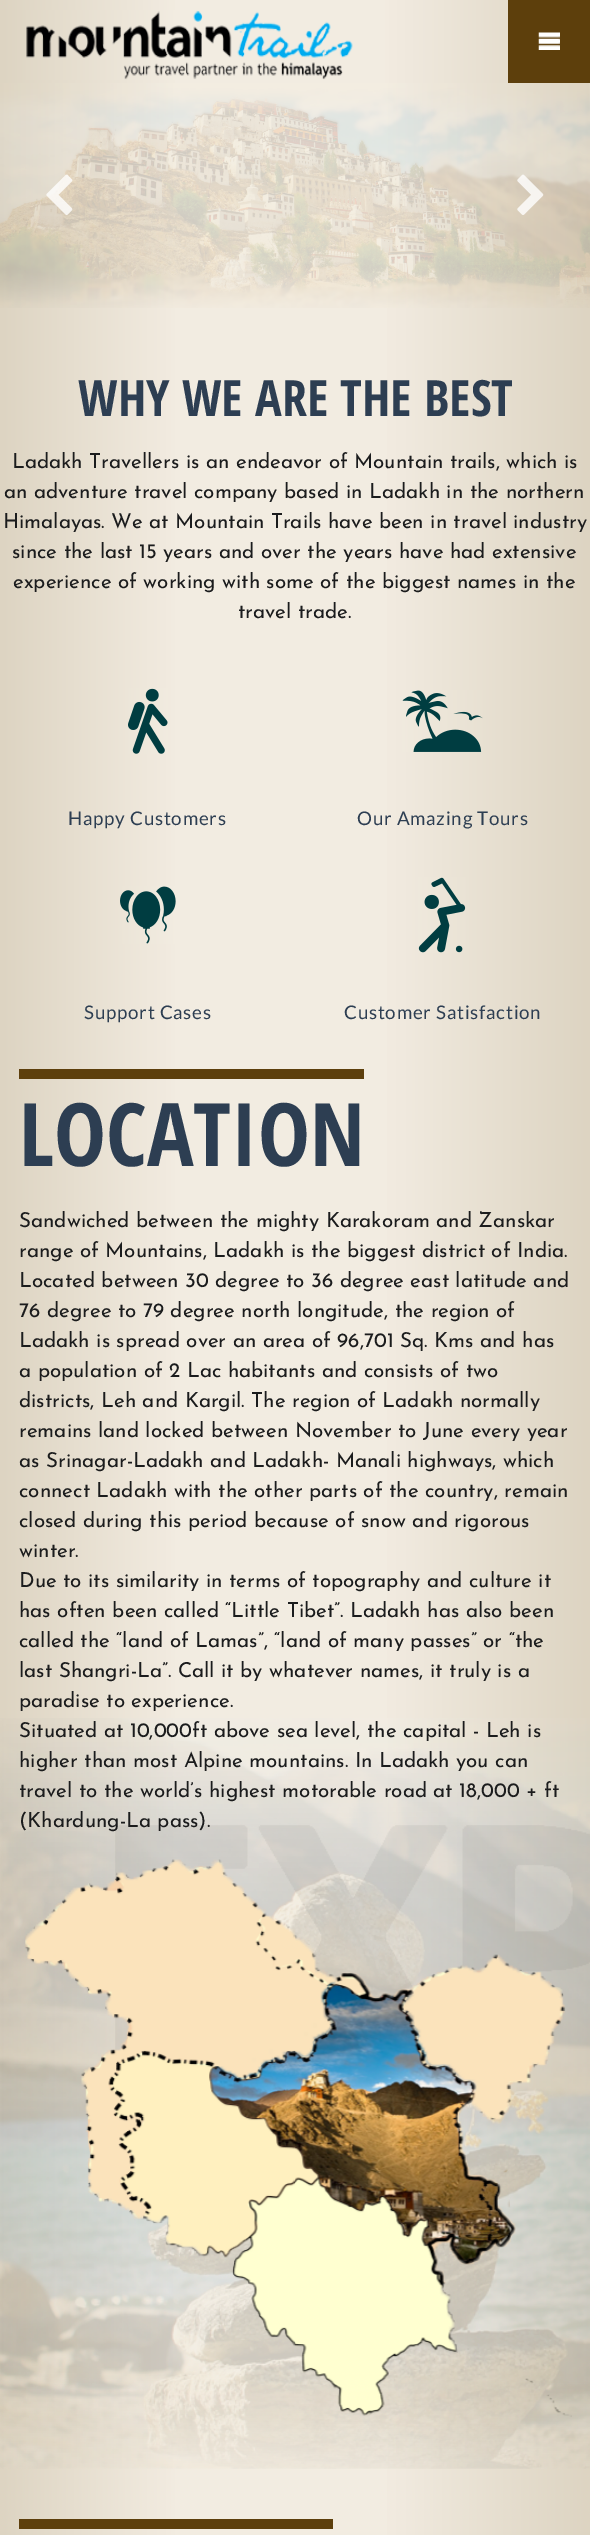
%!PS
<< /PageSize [590 2535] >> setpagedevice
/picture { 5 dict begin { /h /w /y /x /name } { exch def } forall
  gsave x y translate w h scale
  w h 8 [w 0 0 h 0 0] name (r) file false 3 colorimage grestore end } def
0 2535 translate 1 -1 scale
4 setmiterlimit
1 setgray
0 0 590 2535 rectfill
gsave newpath 0 0 moveto 508 0 lineto 508 83 lineto 0 83 lineto closepath clip newpath
<< /ShadingType 2 /ColorSpace /DeviceRGB /Coords [0 41 590 41] /Extend [true true] /Function << /FunctionType 3 /Domain [0 1] /Functions [<< /FunctionType 2 /Domain [0 1] /C0 [0.867 0.831 0.761] /C1 [0.949 0.925 0.882] /N 1 >> << /FunctionType 2 /Domain [0 1] /C0 [0.949 0.925 0.882] /C1 [0.949 0.925 0.882] /N 1 >> << /FunctionType 2 /Domain [0 1] /C0 [0.949 0.925 0.882] /C1 [0.867 0.831 0.761] /N 1 >>] /Bounds [0.3 0.65] /Encode [0 1 0 1 0 1] >> >> shfill grestore
(img1.rgb) 26 10 327 70 picture
0.365 0.247 0.047 setrgbcolor
508 0 82 83 rectfill
(img2.rgb) 538 32 22 18 picture
gsave newpath 0 83 moveto 590 83 lineto 590 315 lineto 0 315 lineto closepath clip newpath
<< /ShadingType 2 /ColorSpace /DeviceRGB /Coords [0 199 590 199] /Extend [true true] /Function << /FunctionType 3 /Domain [0 1] /Functions [<< /FunctionType 2 /Domain [0 1] /C0 [0.867 0.831 0.761] /C1 [0.949 0.925 0.882] /N 1 >> << /FunctionType 2 /Domain [0 1] /C0 [0.949 0.925 0.882] /C1 [0.949 0.925 0.882] /N 1 >> << /FunctionType 2 /Domain [0 1] /C0 [0.949 0.925 0.882] /C1 [0.867 0.831 0.761] /N 1 >>] /Bounds [0.3 0.65] /Encode [0 1 0 1 0 1] >> >> shfill grestore
(img3.rgb) 0 83 590 225 picture
(img4.rgb) 46 174 27 41 picture
(img5.rgb) 517 174 27 41 picture
gsave newpath 0 315 moveto 590 315 lineto 590 2535 lineto 0 2535 lineto closepath clip newpath
<< /ShadingType 2 /ColorSpace /DeviceRGB /Coords [0 2434 590 2434] /Extend [true true] /Function << /FunctionType 3 /Domain [0 1] /Functions [<< /FunctionType 2 /Domain [0 1] /C0 [0.867 0.831 0.761] /C1 [0.949 0.925 0.882] /N 1 >> << /FunctionType 2 /Domain [0 1] /C0 [0.949 0.925 0.882] /C1 [0.949 0.925 0.882] /N 1 >> << /FunctionType 2 /Domain [0 1] /C0 [0.949 0.925 0.882] /C1 [0.867 0.831 0.761] /N 1 >>] /Bounds [0.3 0.65] /Encode [0 1 0 1 0 1] >> >> shfill grestore
(img6.rgb) 0 1718 590 751 picture
/OpenSansCondensed-Bold [50 0 0 -50 0 0] selectfont
0.176 0.243 0.322 setrgbcolor
78 416 moveto (WHY WE ARE THE BEST) show
/JosefinSans-Thin [20.6 0 0 -20.6 0 0] selectfont
0.106 0.11 0.114 setrgbcolor
12 468 moveto (Ladakh Travellers is an endeavor of Mountain trails, which is) show
4 498 moveto (an adventure travel company based in Ladakh in the northern) show
3 528 moveto (Himalayas. We at Mountain Trails have been in travel industry) show
12 558 moveto (since the last 15 years and over the years have had extensive) show
13 588 moveto (experience of working with some of the biggest names in the) show
238 618 moveto (travel trade.) show
(img7.rgb) 128 688 40 66 picture
/Lato-Regular [18.75 0 0 -18.75 0 0] selectfont
0.176 0.243 0.322 setrgbcolor
68 825 moveto 0.75 0 (Happy Customers) ashow
(img8.rgb) 402 690 81 62 picture
357 825 moveto 0.75 0 (Our Amazing Tours) ashow
(img9.rgb) 120 886 56 58 picture
84 1019 moveto 0.75 0 (Support Cases) ashow
(img10.rgb) 418 877 48 76 picture
344 1019 moveto 0.75 0 (Customer Satisfaction) ashow
0.365 0.247 0.047 setrgbcolor
19 1069 345 10 rectfill
/OpenSansCondensed-Bold [87.5 0 0 -87.5 0 0] selectfont
0.176 0.243 0.322 setrgbcolor
19 1166 moveto (LOCATION) show
/JosefinSans-Thin [20.6 0 0 -20.6 0 0] selectfont
0.106 0.11 0.114 setrgbcolor
19 1227 moveto (Sandwiched between the mighty Karakoram and Zanskar) show
19 1257 moveto (range of Mountains, Ladakh is the biggest district of India.) show
19 1287 moveto (Located between 30 degree to 36 degree east latitude and) show
19 1317 moveto (76 degree to 79 degree north longitude, the region of) show
19 1347 moveto (Ladakh is spread over an area of 96,701 Sq. Kms and has) show
19 1377 moveto (a population of 2 Lac habitants and consists of two) show
19 1407 moveto (districts, Leh and Kargil. The region of Ladakh normally) show
19 1437 moveto (remains land locked between November to June every year) show
19 1467 moveto (as Srinagar-Ladakh and Ladakh- Manali highways, which) show
19 1497 moveto (connect Ladakh with the other parts of the country, remain) show
19 1527 moveto (closed during this period because of snow and rigorous) show
19 1557 moveto (winter.) show
19 1587 moveto (Due to its similarity in terms of topography and culture it) show
19 1617 moveto (has often been called “Little Tibet”. Ladakh has also been) show
19 1647 moveto (called the “land of Lamas”, “land of many passes” or “the) show
19 1677 moveto (last Shangri-La”. Call it by whatever names, it truly is a) show
19 1707 moveto (paradise to experience.) show
19 1737 moveto (Situated at 10,000ft above sea level, the capital - Leh is) show
19 1767 moveto (higher than most Alpine mountains. In Ladakh you can) show
19 1797 moveto (travel to the world’s highest motorable road at 18,000 + ft) show
19 1827 moveto (\(Khardung-La pass\).) show
(img11.rgb) 25 1859 547 558 picture
0.365 0.247 0.047 setrgbcolor
19 2519 314 10 rectfill
showpage
